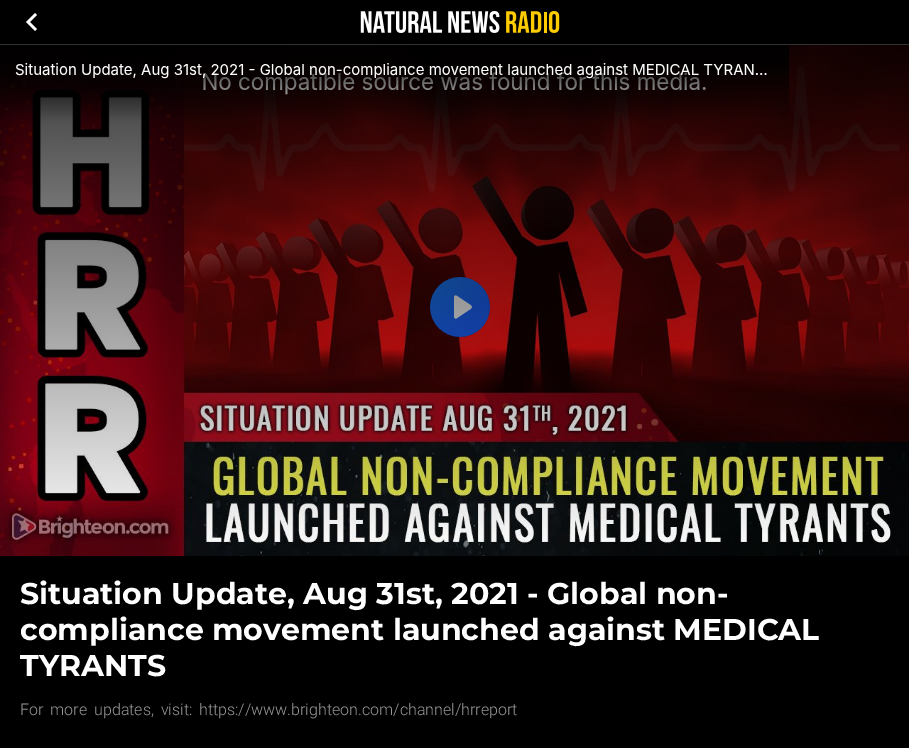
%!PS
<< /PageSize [909 748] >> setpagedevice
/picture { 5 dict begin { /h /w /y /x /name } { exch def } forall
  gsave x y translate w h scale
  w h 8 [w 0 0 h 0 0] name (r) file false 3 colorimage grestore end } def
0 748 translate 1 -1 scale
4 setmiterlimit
0 setgray
0 0 909 748 rectfill
0.2 setgray
0 44 909 1 rectfill
1 setgray
newpath 30 22 moveto 37 15 lineto 35 13 lineto 26 22 lineto 35 31 lineto 37 29 lineto closepath fill
(img1.rgb) 360 11 200 22 picture
(img2.rgb) 0 45 909 511 picture
/Montserrat-Bold [30 0 0 -30 0 0] selectfont
20 604 moveto (Situation Update, Aug 31st, 2021 - Global non-) show
20 640 moveto (compliance movement launched against MEDICAL) show
20 676 moveto (TYRANTS) show
/Roboto-Light [16 0 0 -16 0 0] selectfont
0.6 setgray
20 715 moveto 3 0 32 (For more updates, visit: https://www.brighteon.com/channel/hrreport) widthshow
showpage
